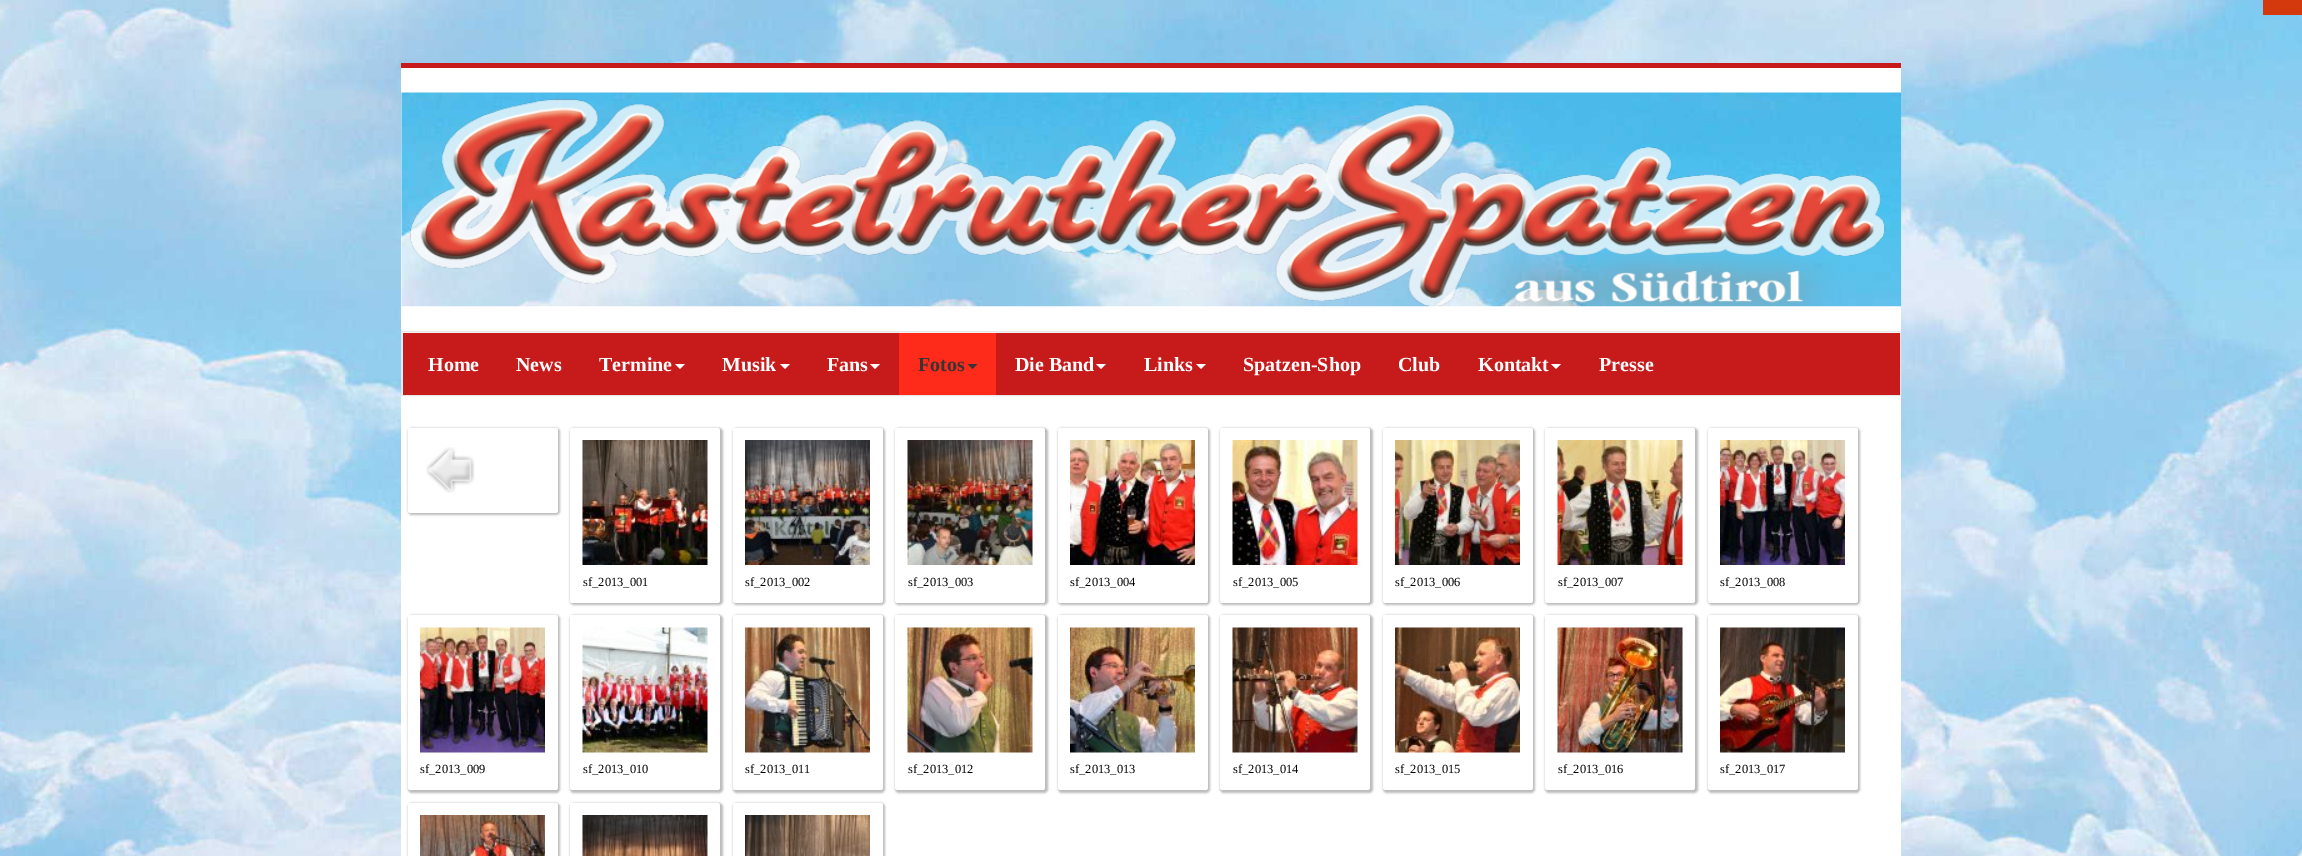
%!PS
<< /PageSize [2302 856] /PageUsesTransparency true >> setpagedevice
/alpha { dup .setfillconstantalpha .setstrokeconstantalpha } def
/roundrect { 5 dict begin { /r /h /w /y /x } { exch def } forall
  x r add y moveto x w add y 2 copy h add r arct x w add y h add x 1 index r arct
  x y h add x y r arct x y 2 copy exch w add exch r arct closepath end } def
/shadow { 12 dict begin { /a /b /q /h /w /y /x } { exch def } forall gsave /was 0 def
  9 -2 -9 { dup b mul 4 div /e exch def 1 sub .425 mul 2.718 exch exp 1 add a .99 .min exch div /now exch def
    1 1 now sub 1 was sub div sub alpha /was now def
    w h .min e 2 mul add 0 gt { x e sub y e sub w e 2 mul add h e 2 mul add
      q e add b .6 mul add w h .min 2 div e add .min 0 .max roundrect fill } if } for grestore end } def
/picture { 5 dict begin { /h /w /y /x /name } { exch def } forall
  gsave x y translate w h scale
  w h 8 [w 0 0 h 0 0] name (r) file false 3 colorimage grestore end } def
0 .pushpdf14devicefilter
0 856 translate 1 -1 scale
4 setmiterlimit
1 setgray
0 0 2302 856 rectfill
(img1.rgb) 0 0 2302 856 picture
0.831 0.224 0.055 setrgbcolor
2263 0 39 15 rectfill
1 setgray
401 68 1500 788 rectfill
0.78 0.102 0.102 setrgbcolor
401 63 1500 5 rectfill
(img2.rgb) 401 92 1501 215 picture
0.973 setgray
newpath 401.5 331.5 moveto 1900.5 331.5 lineto 1900.5 395.5 lineto 401.5 395.5 lineto closepath gsave fill grestore
0.906 setgray
stroke
0.78 0.102 0.102 setrgbcolor
403 333 1497 62 rectfill
/LiberationSerif-Bold [20 0 0 -20 0 0] selectfont
1 setgray
428 371 moveto (Home) show
516 371 moveto (News) show
599 371 moveto (Termine) show
newpath 675 364 moveto 685 364 lineto 680 369 lineto closepath fill
722 371 moveto (Musik) show
newpath 780 364 moveto 790 364 lineto 785 369 lineto closepath fill
827 371 moveto (Fans) show
newpath 870 364 moveto 880 364 lineto 875 369 lineto closepath fill
0.996 0.165 0.102 setrgbcolor
899 333 97 62 rectfill
0.224 0.2 0.2 setrgbcolor
918 371 moveto (Fotos) show
newpath 967.5 364 moveto 977.5 364 lineto 972.5 369 lineto closepath fill
1 setgray
1015 371 moveto (Die Band) show
newpath 1096 364 moveto 1106 364 lineto 1101 369 lineto closepath fill
1144 371 moveto (Links) show
newpath 1196 364 moveto 1206 364 lineto 1201 369 lineto closepath fill
1243 371 moveto (Spatzen-Shop) show
1398 371 moveto (Club) show
1478 371 moveto (Kontakt) show
newpath 1551 364 moveto 1561 364 lineto 1556 369 lineto closepath fill
1599 371 moveto (Presse) show
0.471 setgray
408 428 152 87 4 1 0.5 shadow
1 setgray
408 428 150 85 2.5 roundrect fill
(img3.rgb) 426 447 49 46 picture
0.471 setgray
570 428 153 177 4 1 0.5 shadow
1 setgray
570 428 150 175 2.5 roundrect fill
(img4.rgb) 582 440 126 125 picture
/LiberationSerif-Regular [12.5 0 0 -12.5 0 0] selectfont
0 setgray
583 586 moveto (sf_2013_001) show
0.471 setgray
733 428 152 177 4 1 0.5 shadow
1 setgray
733 428 150 175 2.5 roundrect fill
(img5.rgb) 745 440 125 125 picture
0 setgray
745 586 moveto (sf_2013_002) show
0.471 setgray
895 428 153 177 4 1 0.5 shadow
1 setgray
895 428 150 175 2.5 roundrect fill
(img6.rgb) 907 440 126 125 picture
0 setgray
908 586 moveto (sf_2013_003) show
0.471 setgray
1058 428 152 177 4 1 0.5 shadow
1 setgray
1058 428 150 175 2.5 roundrect fill
(img7.rgb) 1070 440 125 125 picture
0 setgray
1070 586 moveto (sf_2013_004) show
0.471 setgray
1220 428 153 177 4 1 0.5 shadow
1 setgray
1220 428 150 175 2.5 roundrect fill
(img8.rgb) 1232 440 126 125 picture
0 setgray
1233 586 moveto (sf_2013_005) show
0.471 setgray
1383 428 152 177 4 1 0.5 shadow
1 setgray
1383 428 150 175 2.5 roundrect fill
(img9.rgb) 1395 440 125 125 picture
0 setgray
1395 586 moveto (sf_2013_006) show
0.471 setgray
1545 428 153 177 4 1 0.5 shadow
1 setgray
1545 428 150 175 2.5 roundrect fill
(img10.rgb) 1557 440 126 125 picture
0 setgray
1558 586 moveto (sf_2013_007) show
0.471 setgray
1708 428 152 177 4 1 0.5 shadow
1 setgray
1708 428 150 175 2.5 roundrect fill
(img11.rgb) 1720 440 125 125 picture
0 setgray
1720 586 moveto (sf_2013_008) show
0.471 setgray
408 615 152 178 4 1 0.5 shadow
1 setgray
408 615 150 175 2.5 roundrect fill
(img12.rgb) 420 627 125 126 picture
0 setgray
420 773 moveto (sf_2013_009) show
0.471 setgray
570 615 153 178 4 1 0.5 shadow
1 setgray
570 615 150 175 2.5 roundrect fill
(img13.rgb) 582 627 126 126 picture
0 setgray
583 773 moveto (sf_2013_010) show
0.471 setgray
733 615 152 178 4 1 0.5 shadow
1 setgray
733 615 150 175 2.5 roundrect fill
(img14.rgb) 745 627 125 126 picture
0 setgray
745 773 moveto (sf_2013_011) show
0.471 setgray
895 615 153 178 4 1 0.5 shadow
1 setgray
895 615 150 175 2.5 roundrect fill
(img15.rgb) 907 627 126 126 picture
0 setgray
908 773 moveto (sf_2013_012) show
0.471 setgray
1058 615 152 178 4 1 0.5 shadow
1 setgray
1058 615 150 175 2.5 roundrect fill
(img16.rgb) 1070 627 125 126 picture
0 setgray
1070 773 moveto (sf_2013_013) show
0.471 setgray
1220 615 153 178 4 1 0.5 shadow
1 setgray
1220 615 150 175 2.5 roundrect fill
(img17.rgb) 1232 627 126 126 picture
0 setgray
1233 773 moveto (sf_2013_014) show
0.471 setgray
1383 615 152 178 4 1 0.5 shadow
1 setgray
1383 615 150 175 2.5 roundrect fill
(img18.rgb) 1395 627 125 126 picture
0 setgray
1395 773 moveto (sf_2013_015) show
0.471 setgray
1545 615 153 178 4 1 0.5 shadow
1 setgray
1545 615 150 175 2.5 roundrect fill
(img19.rgb) 1557 627 126 126 picture
0 setgray
1558 773 moveto (sf_2013_016) show
0.471 setgray
1708 615 152 178 4 1 0.5 shadow
1 setgray
1708 615 150 175 2.5 roundrect fill
(img20.rgb) 1720 627 125 126 picture
0 setgray
1720 773 moveto (sf_2013_017) show
0.471 setgray
408 803 152 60 4 1 0.5 shadow
1 setgray
408 803 150 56 2.5 roundrect fill
(img21.rgb) 420 815 125 41 picture
0.471 setgray
570 803 153 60 4 1 0.5 shadow
1 setgray
570 803 150 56 2.5 roundrect fill
(img22.rgb) 582 815 126 41 picture
0.471 setgray
733 803 152 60 4 1 0.5 shadow
1 setgray
733 803 150 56 2.5 roundrect fill
(img23.rgb) 745 815 125 41 picture
.poppdf14devicefilter showpage
